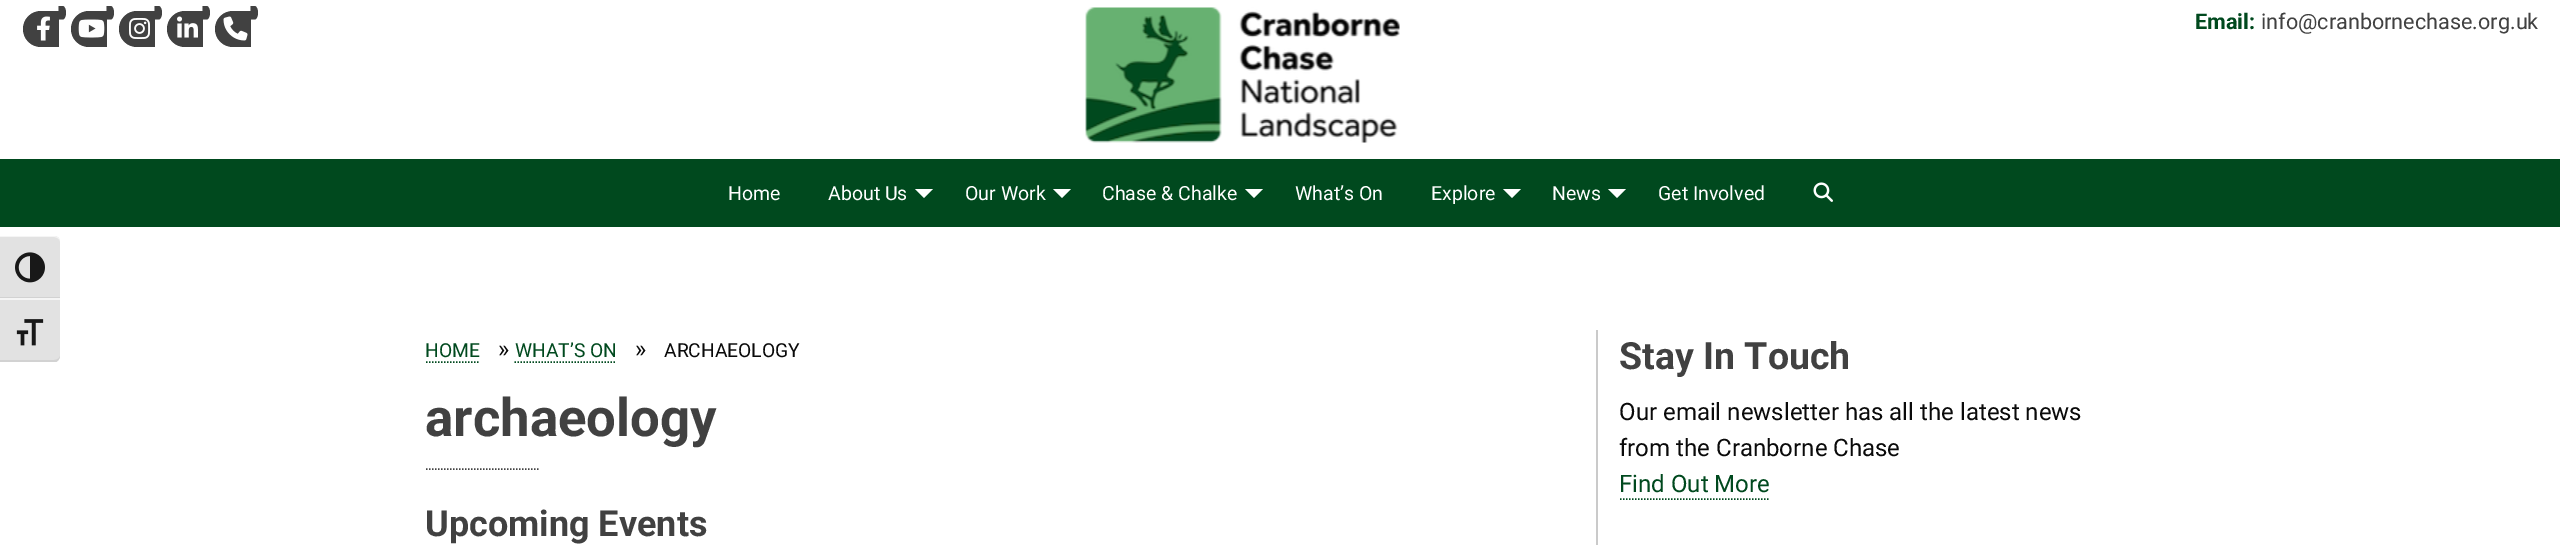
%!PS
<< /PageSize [2560 545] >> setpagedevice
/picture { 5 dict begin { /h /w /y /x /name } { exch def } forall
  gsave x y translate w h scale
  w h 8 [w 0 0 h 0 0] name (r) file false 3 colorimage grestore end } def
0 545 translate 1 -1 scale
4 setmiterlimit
1 setgray
0 0 2560 545 rectfill
0.886 setgray
newpath 0 236 moveto 54 236 lineto 57.5 236 60 238.5 60 242 curveto 60 299 lineto 0 299 lineto closepath fill
0.961 setgray
newpath 0 237 moveto 54 237 lineto 57 237 60 239 60 242 curveto 60 238 57 236 54 236 curveto 0 236 lineto closepath fill
0.824 setgray
0 297 60 1 rectfill
(img1.rgb) 15 252 30 31 picture
0.886 setgray
newpath 0 299 moveto 60 299 lineto 60 356 lineto 60 359.5 57.5 362 54 362 curveto 0 362 lineto closepath fill
0.961 setgray
0 298 60 2 rectfill
0.824 setgray
newpath 56 362 moveto 58 361 60 358 60 356 curveto 60 358 57 360 54 360 curveto 0 360 lineto 0 362 lineto closepath fill
(img2.rgb) 16 319 28 27 picture
(img3.rgb) 1085 7 315 136 picture
0.255 setgray
newpath 41 11 moveto 59 11 lineto 59 47 lineto 41 47 lineto 31 47 23 39 23 29 curveto 23 19 31 11 41 11 curveto closepath fill
newpath 58.5 6 moveto 63 6 lineto 67 7.5 67 18 63 19.5 curveto 58.5 19.5 lineto closepath fill
(img4.rgb) 37 16 13 25 picture
newpath 89 11 moveto 107 11 lineto 107 47 lineto 89 47 lineto 79 47 71 39 71 29 curveto 71 19 79 11 89 11 curveto closepath fill
newpath 106.5 6 moveto 111 6 lineto 115 7.5 115 18 111 19.5 curveto 106.5 19.5 lineto closepath fill
(img5.rgb) 78 19 27 19 picture
newpath 137 11 moveto 155 11 lineto 155 47 lineto 137 47 lineto 127 47 119 39 119 29 curveto 119 19 127 11 137 11 curveto closepath fill
newpath 154.5 6 moveto 159 6 lineto 163 7.5 163 18 159 19.5 curveto 154.5 19.5 lineto closepath fill
(img6.rgb) 129 18 21 21 picture
newpath 185 11 moveto 203 11 lineto 203 47 lineto 185 47 lineto 175 47 167 39 167 29 curveto 167 19 175 11 185 11 curveto closepath fill
newpath 202.5 6 moveto 207 6 lineto 211 7.5 211 18 207 19.5 curveto 202.5 19.5 lineto closepath fill
(img7.rgb) 177 16 21 22 picture
newpath 233 11 moveto 251 11 lineto 251 47 lineto 233 47 lineto 223 47 215 39 215 29 curveto 215 19 223 11 233 11 curveto closepath fill
newpath 250.5 6 moveto 255 6 lineto 259 7.5 259 18 255 19.5 curveto 250.5 19.5 lineto closepath fill
(img8.rgb) 223 16 25 25 picture
/Roboto-Bold [21.6 0 0 -21.6 0 0] selectfont
0 0.286 0.118 setrgbcolor
2195 29 moveto (Email:) show
/Roboto-Regular [21.6 0 0 -21.6 0 0] selectfont
0.255 setgray
2261 29 moveto (info@cranbornechase.org.uk) show
0 0.286 0.118 setrgbcolor
0 159 2560 68 rectfill
/Roboto-Regular [19.5 0 0 -19.5 0 0] selectfont
1 setgray
728 200 moveto (Home) show
828 200 moveto (About Us) show
newpath 915 189 moveto 933 189 lineto 924 198 lineto closepath fill
965 200 moveto (Our Work) show
newpath 1053 189 moveto 1071 189 lineto 1062 198 lineto closepath fill
1102 200 moveto (Chase & Chalke) show
newpath 1245 189 moveto 1263 189 lineto 1254 198 lineto closepath fill
1295 200 moveto (What’s On) show
1431 200 moveto (Explore) show
newpath 1503 189 moveto 1521 189 lineto 1512 198 lineto closepath fill
1552 200 moveto (News) show
newpath 1608 189 moveto 1626 189 lineto 1617 198 lineto closepath fill
1658 200 moveto (Get Involved) show
(img9.rgb) 1813 182 20 20 picture
/Roboto-Regular [19.25 0 0 -19.25 0 0] selectfont
0 0.286 0.118 setrgbcolor
425 357 moveto (HOME) show
1.5 setlinewidth
[1.5 1.5] 0 setdash
newpath 426 362 moveto 480 362 lineto stroke
/Roboto-Regular [24 0 0 -24 0 0] selectfont
0.039 setgray
498 357 moveto (») show
/Roboto-Regular [19.25 0 0 -19.25 0 0] selectfont
0 0.286 0.118 setrgbcolor
515 357 moveto (WHAT’S ON) show
newpath 514.5 362 moveto 616.5 362 lineto stroke
/Roboto-Regular [24 0 0 -24 0 0] selectfont
0.039 setgray
635 357 moveto (») show
/Roboto-Regular [19.25 0 0 -19.25 0 0] selectfont
664 357 moveto (ARCHAEOLOGY) show
/Roboto-Bold [52.75 0 0 -52.75 0 0] selectfont
0.255 setgray
425 436 moveto (archaeology) show
newpath 426 469 moveto 538.5 469 lineto stroke
/Roboto-Bold [36 0 0 -36 0 0] selectfont
425 536 moveto (Upcoming Events) show
0.792 setgray
1596 330 2 215 rectfill
/Roboto-Bold [37.5 0 0 -37.5 0 0] selectfont
0.255 setgray
1619 369 moveto (Stay In Touch) show
/Roboto-Regular [24 0 0 -24 0 0] selectfont
0.039 setgray
1619 420 moveto (Our email newsletter has all the latest news) show
1619 456 moveto (from the Cranborne Chase) show
0 0.286 0.118 setrgbcolor
1619 492 moveto (Find Out More) show
newpath 1620 499 moveto 1770 499 lineto stroke
showpage
